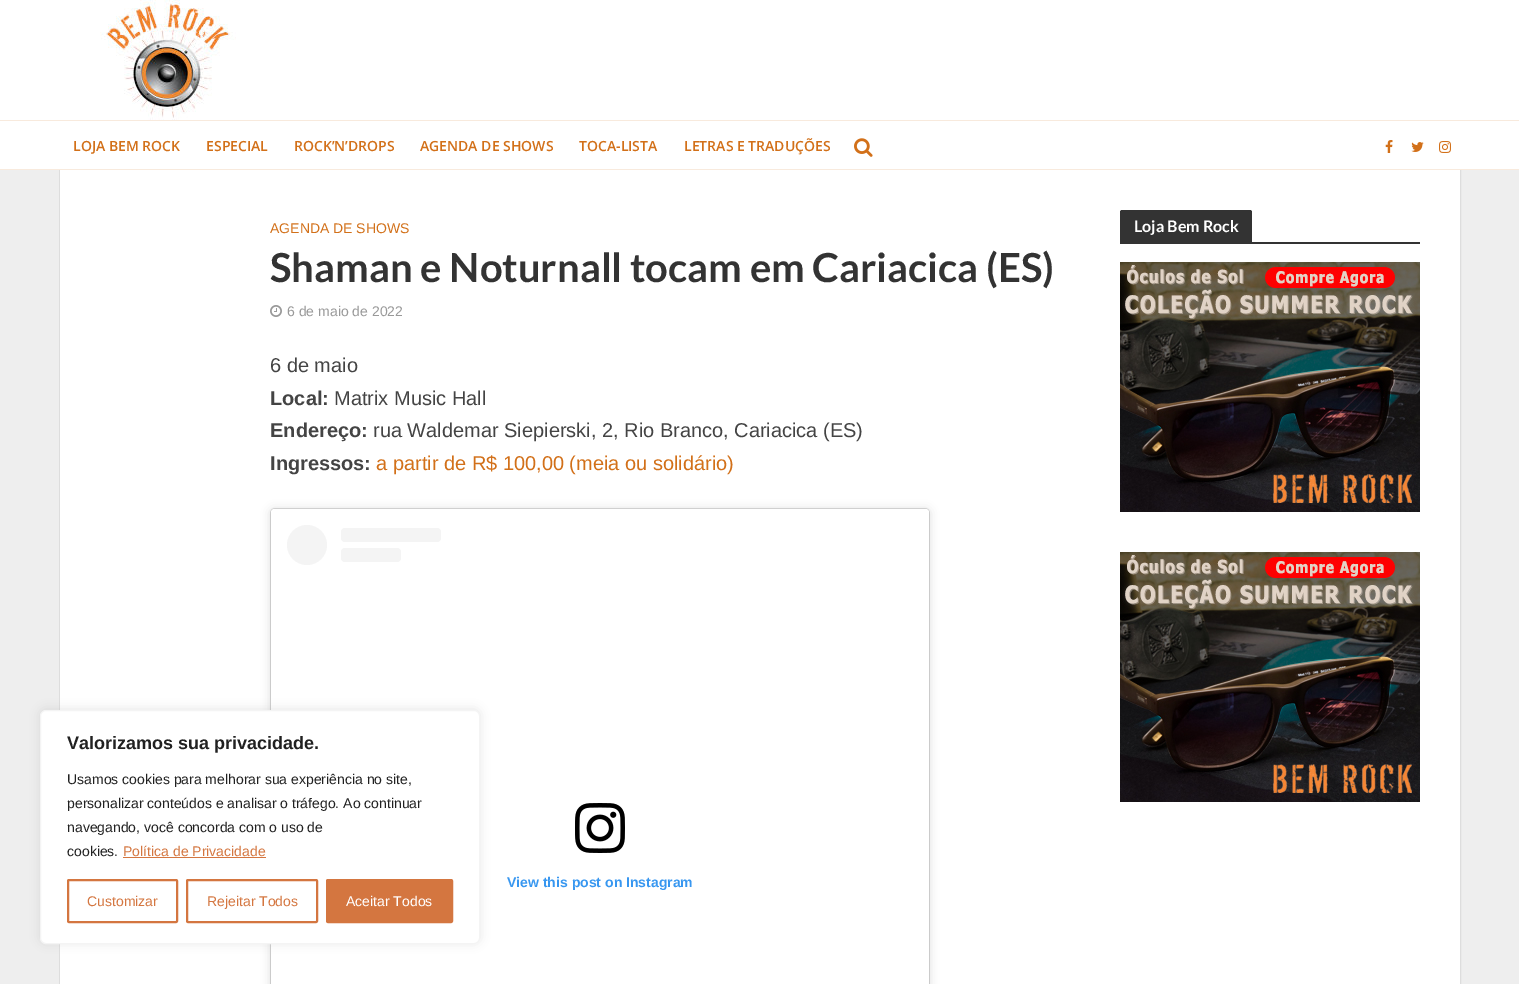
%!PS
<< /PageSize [1519 984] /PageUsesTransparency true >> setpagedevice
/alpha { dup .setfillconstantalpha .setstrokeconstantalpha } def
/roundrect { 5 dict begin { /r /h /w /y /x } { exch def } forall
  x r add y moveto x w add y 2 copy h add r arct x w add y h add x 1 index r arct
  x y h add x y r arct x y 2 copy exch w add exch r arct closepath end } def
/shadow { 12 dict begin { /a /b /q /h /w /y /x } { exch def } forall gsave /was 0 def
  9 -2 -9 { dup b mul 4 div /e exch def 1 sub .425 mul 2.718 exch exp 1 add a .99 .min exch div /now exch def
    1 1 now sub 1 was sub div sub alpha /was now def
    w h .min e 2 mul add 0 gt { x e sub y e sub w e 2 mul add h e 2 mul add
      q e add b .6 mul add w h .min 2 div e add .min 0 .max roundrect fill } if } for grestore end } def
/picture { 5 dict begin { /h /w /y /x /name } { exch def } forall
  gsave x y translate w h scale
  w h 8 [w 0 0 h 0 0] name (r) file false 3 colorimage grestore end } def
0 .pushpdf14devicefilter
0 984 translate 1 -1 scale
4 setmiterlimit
0.933 setgray
0 0 1519 984 rectfill
1 setgray
0 0 1519 120 rectfill
(img1.rgb) 100 0 136 120 picture
0 121 1519 48 rectfill
0.973 0.918 0.867 setrgbcolor
0 120 1519 1 rectfill
0.867 setgray
59.5 169.5 1401 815 rectstroke
0.973 0.918 0.867 setrgbcolor
0 169 1519 1 rectfill
/OpenSans-SemiBold [14 0 0 -14 0 0] selectfont
0.824 0.439 0.098 setrgbcolor
73 151 moveto (LOJA BEM ROCK) show
206 151 moveto (ESPECIAL) show
294 151 moveto (ROCK’N’DROPS) show
420 151 moveto (AGENDA DE SHOWS) show
579 151 moveto (TOCA-LISTA) show
684 151 moveto (LETRAS E TRADUÇÕES) show
(img2.rgb) 854 138 19 19 picture
(img3.rgb) 1385 140 8 13 picture
(img4.rgb) 1411 142 13 10 picture
(img5.rgb) 1439 141 12 12 picture
1 setgray
60 170 1400 814 rectfill
0 setgray
271 510 658 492 3 5 0.15 shadow
271 509 658 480 3 0.5 0.5 shadow
1 setgray
271 509 658 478 3 roundrect fill
0.675 0.671 0.671 setrgbcolor
40 709 440 234 6 5 0.3 shadow
1 setgray
40.5 710.5 439 233 5.5 roundrect gsave fill grestore
0.957 setgray
stroke
/LiberationSans-Bold [18 0 0 -18 0 0] selectfont
0.129 setgray
67 749 moveto (Valorizamos sua privacidade.) show
/LiberationSans-Regular [14 0 0 -14 0 0] selectfont
67 784 moveto (Usamos cookies para melhorar sua experiência no site,) show
67 808 moveto (personalizar conteúdos e analisar o tráfego. Ao continuar) show
67 832 moveto (navegando, você concorda com o uso de) show
67 856 moveto (cookies.) show
0.831 0.463 0.251 setrgbcolor
123 856 moveto (Política de Privacidade) show
123 857 143 1 rectfill
2 setlinewidth
68 880 109 42 1 roundrect stroke
87 906 moveto (Customizar) show
187 880 130 42 1 roundrect stroke
207 906 moveto (Rejeitar Todos) show
327 880 125 42 1 roundrect gsave fill grestore
stroke
1 setgray
346 906 moveto (Aceitar Todos) show
0.824 0.439 0.098 setrgbcolor
270 233 moveto (AGENDA DE SHOWS) show
/Lato-Bold [40 0 0 -40 0 0] selectfont
0.2 setgray
270 282 moveto (Shaman e Noturnall tocam em Cariacica \(ES\)) show
(img6.rgb) 270 305 12 12 picture
/LiberationSans-Regular [14 0 0 -14 0 0] selectfont
0.6 setgray
287 316 moveto (6 de maio de 2022) show
/LiberationSans-Regular [20 0 0 -20 0 0] selectfont
0.267 setgray
270 372 moveto (6 de maio) show
/LiberationSans-Bold [20 0 0 -20 0 0] selectfont
270 405 moveto (Local:) show
/LiberationSans-Regular [20 0 0 -20 0 0] selectfont
334 405 moveto (Matrix Music Hall) show
/LiberationSans-Bold [20 0 0 -20 0 0] selectfont
270 437 moveto (Endereço:) show
/LiberationSans-Regular [20 0 0 -20 0 0] selectfont
373 437 moveto (rua Waldemar Siepierski, 2, Rio Branco, Cariacica \(ES\)) show
/LiberationSans-Bold [20 0 0 -20 0 0] selectfont
270 470 moveto (Ingressos:) show
/LiberationSans-Regular [20 0 0 -20 0 0] selectfont
0.824 0.439 0.098 setrgbcolor
376 470 moveto (a partir de R$ 100,00 \(meia ou solidário\)) show
0.957 setgray
newpath 307 545 20 0 360 arc closepath fill
341 528 100 14 4 roundrect fill
341 548 60 14 4 roundrect fill
(img7.rgb) 575 803 50 50 picture
/LiberationSans-Bold [14 0 0 -14 0 0] selectfont
0.22 0.592 0.941 setrgbcolor
507 887 moveto (View this post on Instagram) show
0.2 setgray
newpath 1122 210 moveto 1250 210 lineto 1251 210 1252 211 1252 212 curveto 1252 242 lineto 1120 242 lineto 1120 212 lineto 1120 211 1121 210 1122 210 curveto closepath fill
/Lato-Bold [16 0 0 -16 0 0] selectfont
1 setgray
1134 232 moveto (Loja Bem Rock) show
0.2 setgray
1120 242 300 2 rectfill
(img8.rgb) 1120 262 300 250 picture
(img8.rgb) 1120 552 300 250 picture
.poppdf14devicefilter showpage
